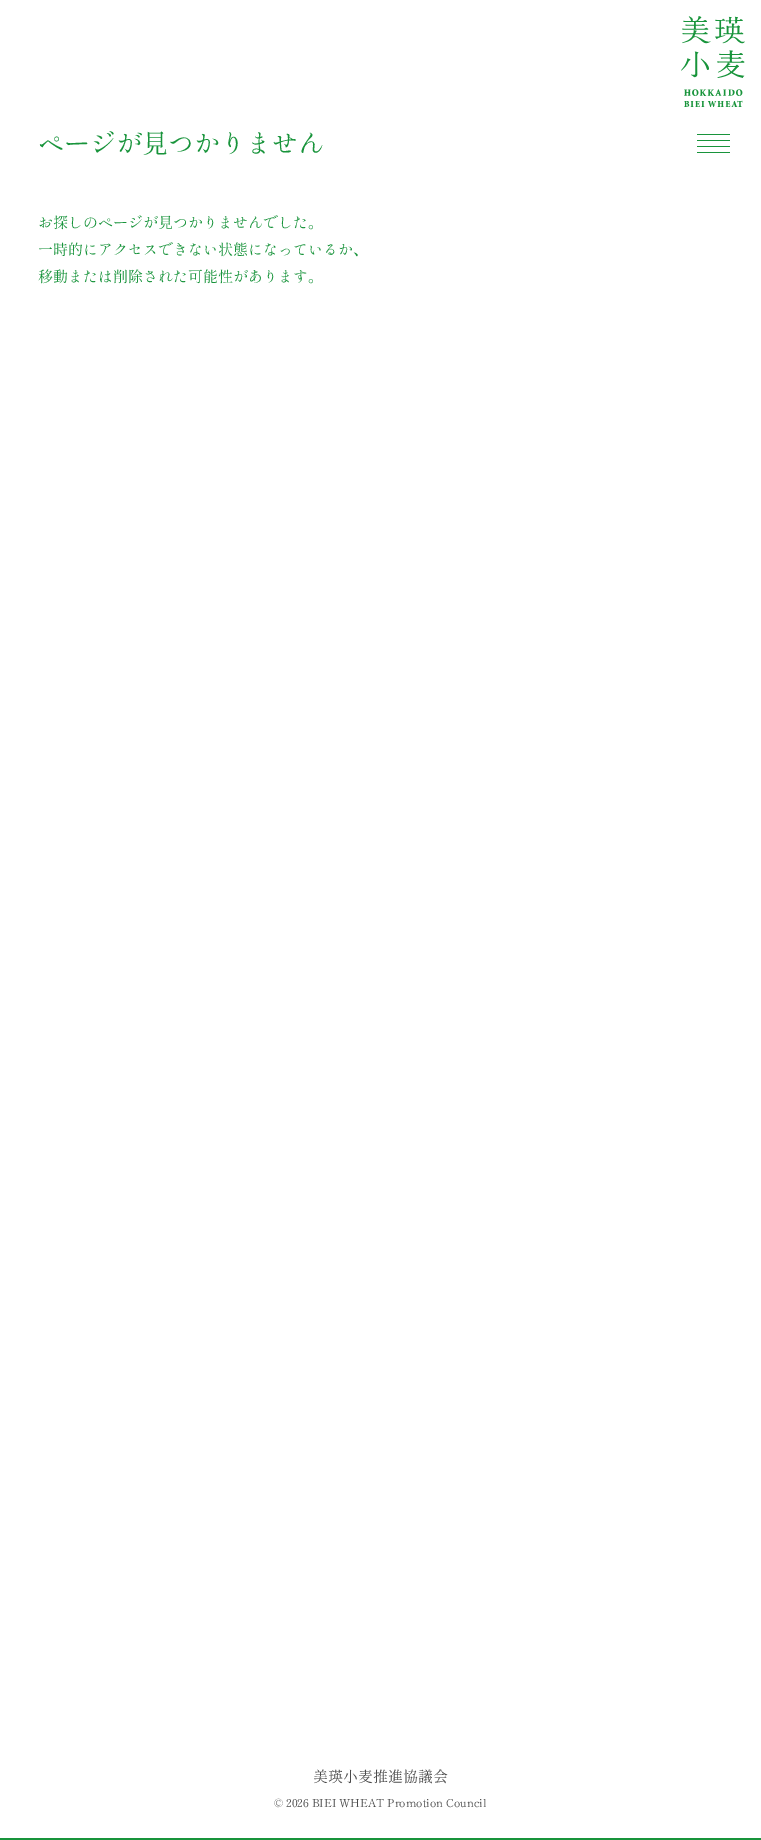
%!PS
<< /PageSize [761 1840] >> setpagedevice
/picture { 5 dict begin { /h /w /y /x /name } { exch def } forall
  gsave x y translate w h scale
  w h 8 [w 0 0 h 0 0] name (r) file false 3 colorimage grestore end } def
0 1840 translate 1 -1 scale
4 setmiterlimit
1 setgray
0 0 761 1840 rectfill
(img1.rgb) 681 16 64 91 picture
0.094 0.58 0.231 setrgbcolor
697 134 33 1 rectfill
697 140 33 1 rectfill
697 146 33 1 rectfill
697 152 33 1 rectfill
/ShipporiMincho-Regular [26 0 0 -26 0 0] selectfont
38 153 moveto (ページが見つかりません) show
/ShipporiMincho-Regular [15 0 0 -15 0 0] selectfont
38 228 moveto (お探しのページが見つかりませんでした) show
/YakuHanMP-SemiBold [15 0 0 -15 0 0] selectfont
308 228 moveto (。) show
/ShipporiMincho-Regular [15 0 0 -15 0 0] selectfont
38 255 moveto (一時的にアクセスできない状態になっているか) show
/YakuHanMP-SemiBold [15 0 0 -15 0 0] selectfont
353 255 moveto (、) show
/ShipporiMincho-Regular [15 0 0 -15 0 0] selectfont
38 282 moveto (移動または削除された可能性があります) show
/YakuHanMP-SemiBold [15 0 0 -15 0 0] selectfont
308 282 moveto (。) show
0 1838 761 2 rectfill
/ShipporiMincho-Regular [15 0 0 -15 0 0] selectfont
0.294 setgray
313 1782 moveto (美瑛小麦推進協議会) show
/ShipporiMincho-Regular [11 0 0 -11 0 0] selectfont
274 1807 moveto (© 2026 BIEI WHEAT Promotion Council) show
showpage
